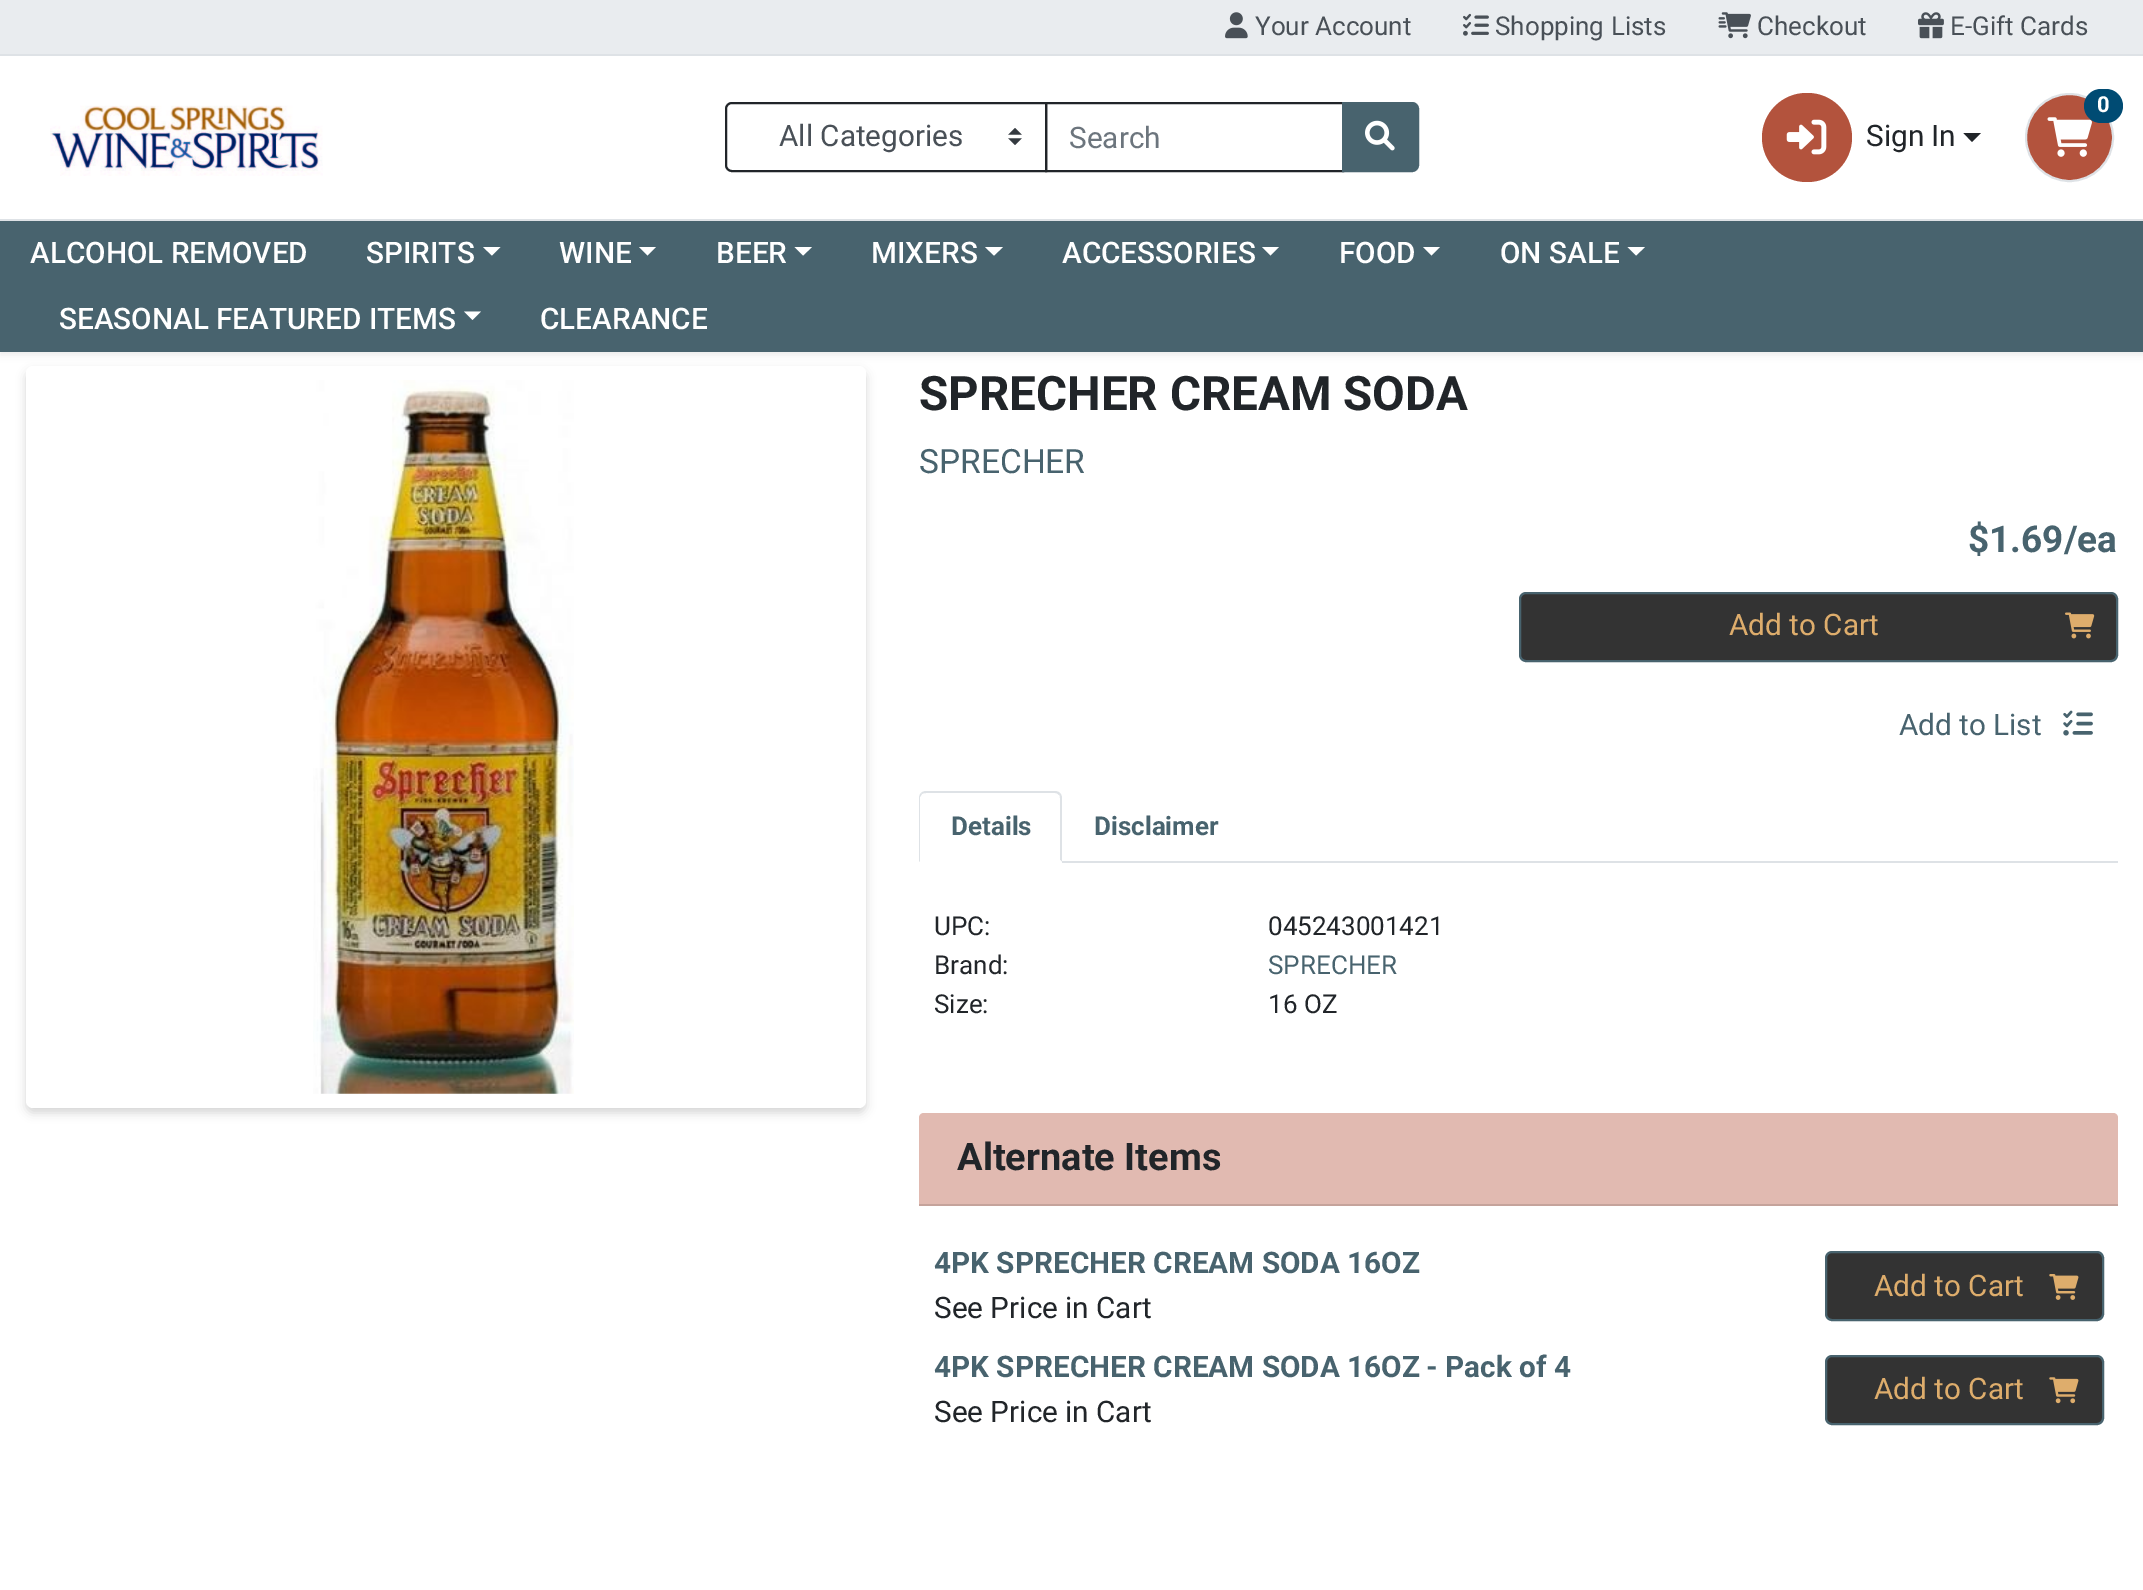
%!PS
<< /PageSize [2143 1590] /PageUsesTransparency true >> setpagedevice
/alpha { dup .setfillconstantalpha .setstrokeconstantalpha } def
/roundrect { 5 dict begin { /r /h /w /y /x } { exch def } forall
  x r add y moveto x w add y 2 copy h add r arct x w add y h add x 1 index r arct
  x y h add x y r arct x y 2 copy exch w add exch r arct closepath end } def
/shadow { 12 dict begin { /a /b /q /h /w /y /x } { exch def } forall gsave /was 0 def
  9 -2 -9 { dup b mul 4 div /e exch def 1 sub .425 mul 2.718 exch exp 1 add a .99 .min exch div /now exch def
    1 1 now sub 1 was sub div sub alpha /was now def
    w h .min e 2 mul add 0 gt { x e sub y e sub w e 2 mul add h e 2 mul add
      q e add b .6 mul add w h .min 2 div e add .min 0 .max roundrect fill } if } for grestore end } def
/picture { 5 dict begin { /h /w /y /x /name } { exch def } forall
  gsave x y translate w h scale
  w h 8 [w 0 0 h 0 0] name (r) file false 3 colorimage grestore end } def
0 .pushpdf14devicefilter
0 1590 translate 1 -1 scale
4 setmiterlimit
1 setgray
0 0 2143 1590 rectfill
0 setgray
26 371 840 742 7 5 0.16 shadow
1 setgray
26 366 840 742 7 roundrect fill
0 setgray
0 4 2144 351 0 3.5 0.07 shadow
1 setgray
0 56 2143 163 rectfill
0.914 0.925 0.937 setrgbcolor
0 0 2143 54 rectfill
0.871 0.886 0.902 setrgbcolor
0 54 2143 2 rectfill
(img1.rgb) 1225 12 23 27 picture
/Roboto-Regular [26 0 0 -26 0 0] selectfont
0.286 0.314 0.341 setrgbcolor
1255 35 moveto (Your Account) show
(img2.rgb) 1463 13 26 23 picture
1495 35 moveto (Shopping Lists) show
(img3.rgb) 1718 12 33 27 picture
1757 35 moveto (Checkout) show
(img4.rgb) 1918 12 26 27 picture
1950 35 moveto (E-Gift Cards) show
0.871 0.886 0.902 setrgbcolor
0 219 2143 2 rectfill
(img5.rgb) 50 105 273 71 picture
0.129 0.145 0.161 setrgbcolor
2 setlinewidth
1046 103 297 68 rectstroke
1 setgray
newpath 732 102 moveto 1047 102 lineto 1047 172 lineto 732 172 lineto 728 172 725 169 725 165 curveto 725 109 lineto 725 105 728 102 732 102 curveto closepath fill
(img6.rgb) 1008 128 14 17 picture
0.129 0.145 0.161 setrgbcolor
newpath 732 103 moveto 1046 103 lineto 1046 171 lineto 732 171 lineto 728.5 171 726 168.5 726 165 curveto 726 109 lineto 726 105.5 728.5 103 732 103 curveto closepath stroke
/Roboto-Regular [29.7 0 0 -29.7 0 0] selectfont
0.286 0.314 0.341 setrgbcolor
779 146 moveto (All Categories) show
0.424 0.459 0.49 setrgbcolor
1069 148 moveto (Search) show
0.282 0.388 0.431 setrgbcolor
newpath 1343 103 moveto 1412 103 lineto 1415.5 103 1418 105.5 1418 109 curveto 1418 165 lineto 1418 168.5 1415.5 171 1412 171 curveto 1343 171 lineto closepath gsave fill grestore
stroke
(img7.rgb) 1365 120 30 31 picture
0.702 0.325 0.239 setrgbcolor
newpath 2069.5 137.5 43.5 0 360 arc closepath gsave fill grestore
0.871 0.886 0.902 setrgbcolor
stroke
(img8.rgb) 2047 117 45 40 picture
0 0.294 0.451 setrgbcolor
2084 89 39 34 17 roundrect fill
/Roboto-Bold [22 0 0 -22 0 0] selectfont
1 setgray
2097 112 moveto (0) show
0.702 0.325 0.239 setrgbcolor
1762 93 90 89 44.5 roundrect fill
(img9.rgb) 1786 119 41 36 picture
/Roboto-Regular [29.7 0 0 -29.7 0 0] selectfont
0.129 0.145 0.161 setrgbcolor
1866 146 moveto (Sign In) show
newpath 1963.5 133 moveto 1981 133 lineto 1972 142 lineto closepath fill
0.282 0.388 0.431 setrgbcolor
0 221 2143 131 rectfill
/Roboto-Medium [29.7 0 0 -29.7 0 0] selectfont
1 setgray
30 263 moveto (ALCOHOL REMOVED) show
366 263 moveto (SPIRITS) show
newpath 483 247 moveto 500.5 247 lineto 492 255.5 lineto closepath fill
559 263 moveto (WINE) show
newpath 639 247 moveto 656 247 lineto 647.5 255.5 lineto closepath fill
716 263 moveto (BEER) show
newpath 794.5 247 moveto 812 247 lineto 803 255.5 lineto closepath fill
871 263 moveto (MIXERS) show
newpath 985 247 moveto 1003 247 lineto 994 255.5 lineto closepath fill
1062 263 moveto (ACCESSORIES) show
newpath 1262 247 moveto 1279 247 lineto 1270.5 255.5 lineto closepath fill
1339 263 moveto (FOOD) show
newpath 1423 247 moveto 1440 247 lineto 1431.5 255.5 lineto closepath fill
1500 263 moveto (ON SALE) show
newpath 1627.5 247 moveto 1645 247 lineto 1636 255.5 lineto closepath fill
59 329 moveto (SEASONAL FEATURED ITEMS) show
newpath 464 311.5 moveto 481 311.5 lineto 472.5 320 lineto closepath fill
540 329 moveto (CLEARANCE) show
(img10.rgb) 313 380 261 714 picture
/Roboto-Bold [47.5 0 0 -47.5 0 0] selectfont
0.129 0.145 0.161 setrgbcolor
919 410 moveto (SPRECHER CREAM SODA) show
/Roboto-Regular [33.5 0 0 -33.5 0 0] selectfont
0.282 0.388 0.431 setrgbcolor
919 473 moveto (SPRECHER) show
/Roboto-Bold [37 0 0 -37 0 0] selectfont
1968 552 moveto ($1.69/ea) show
0.2 setgray
1520 593 597 68 6 roundrect gsave fill grestore
0.282 0.388 0.431 setrgbcolor
stroke
/Roboto-Regular [29.7 0 0 -29.7 0 0] selectfont
0.871 0.678 0.424 setrgbcolor
1729 635 moveto (Add to Cart) show
(img11.rgb) 2065 612 30 27 picture
0.282 0.388 0.431 setrgbcolor
1899 735 moveto (Add to List) show
(img12.rgb) 2063 710 30 26 picture
0.871 0.886 0.902 setrgbcolor
1062 861 1056 2 rectfill
newpath 926 791 moveto 924 791 922 792 921 793 curveto 922 794 lineto 923 793 925 793 926 793 curveto 1055 793 lineto 1057 793 1058 794 1059 795 curveto 1060 793 lineto 1059 792 1057 791 1055 791 curveto closepath fill
newpath 1060 793 moveto 1061 794 1062 796 1062 798 curveto 1062 862 lineto 1060 860 lineto 1060 798 lineto 1060 797 1060 795 1059 795 curveto closepath fill
1 setgray
newpath 919 863 moveto 920 861 lineto 1060 861 lineto 1060 860 lineto 1062 862 lineto closepath fill
0.871 0.886 0.902 setrgbcolor
newpath 921 793 moveto 920 794 919 796 919 798 curveto 919 862 lineto 920 861 lineto 920 797 lineto 922 794 lineto closepath fill
/Roboto-Bold [26 0 0 -26 0 0] selectfont
0.282 0.388 0.431 setrgbcolor
951 835 moveto (Details) show
1094 835 moveto (Disclaimer) show
/Roboto-Regular [26 0 0 -26 0 0] selectfont
0.129 0.145 0.161 setrgbcolor
934 935 moveto (UPC:) show
1268 935 moveto (045243001421) show
934 974 moveto (Brand:) show
0.282 0.388 0.431 setrgbcolor
1268 974 moveto (SPRECHER) show
0.129 0.145 0.161 setrgbcolor
934 1013 moveto (Size:) show
1268 1013 moveto (16 OZ) show
0.882 0.729 0.694 setrgbcolor
newpath 924 1113 moveto 2113 1113 lineto 2116 1113 2118 1115 2118 1118 curveto 2118 1206 lineto 919 1206 lineto 919 1118 lineto 919 1115 921 1113 924 1113 curveto closepath fill
0.773 0.639 0.608 setrgbcolor
919 1204 1199 2 rectfill
/Roboto-Bold [38 0 0 -38 0 0] selectfont
0.129 0.145 0.161 setrgbcolor
957 1170 moveto (Alternate Items) show
/Roboto-Bold [29.7 0 0 -29.7 0 0] selectfont
0.282 0.388 0.431 setrgbcolor
934 1273 moveto (4PK SPRECHER CREAM SODA 16OZ) show
/Roboto-Regular [29.7 0 0 -29.7 0 0] selectfont
0.129 0.145 0.161 setrgbcolor
934 1318 moveto (See Price in Cart) show
0.2 setgray
1826 1252 277 68 6 roundrect gsave fill grestore
0.282 0.388 0.431 setrgbcolor
stroke
0.871 0.678 0.424 setrgbcolor
1874 1296 moveto (Add to Cart) show
(img13.rgb) 2049 1274 30 26 picture
/Roboto-Bold [29.7 0 0 -29.7 0 0] selectfont
0.282 0.388 0.431 setrgbcolor
934 1377 moveto (4PK SPRECHER CREAM SODA 16OZ) show
1426 1377 moveto (- Pack of 4) show
/Roboto-Regular [29.7 0 0 -29.7 0 0] selectfont
0.129 0.145 0.161 setrgbcolor
934 1422 moveto (See Price in Cart) show
0.2 setgray
1826 1356 277 68 6 roundrect gsave fill grestore
0.282 0.388 0.431 setrgbcolor
stroke
0.871 0.678 0.424 setrgbcolor
1874 1399 moveto (Add to Cart) show
(img14.rgb) 2049 1377 30 27 picture
.poppdf14devicefilter showpage
